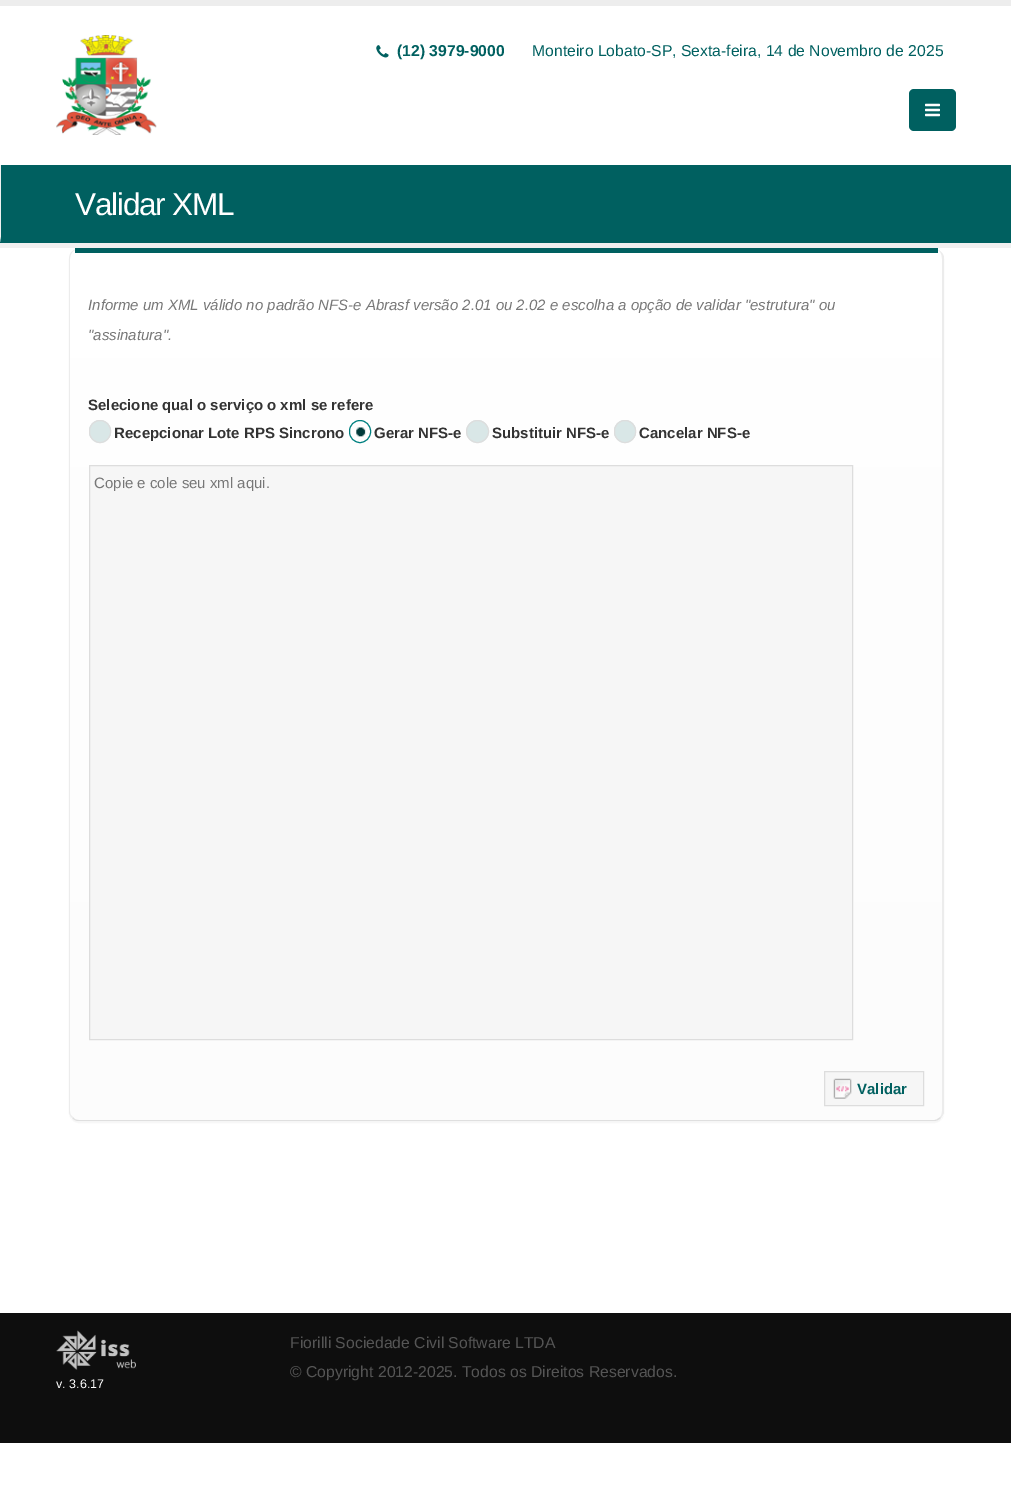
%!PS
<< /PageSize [1011 1512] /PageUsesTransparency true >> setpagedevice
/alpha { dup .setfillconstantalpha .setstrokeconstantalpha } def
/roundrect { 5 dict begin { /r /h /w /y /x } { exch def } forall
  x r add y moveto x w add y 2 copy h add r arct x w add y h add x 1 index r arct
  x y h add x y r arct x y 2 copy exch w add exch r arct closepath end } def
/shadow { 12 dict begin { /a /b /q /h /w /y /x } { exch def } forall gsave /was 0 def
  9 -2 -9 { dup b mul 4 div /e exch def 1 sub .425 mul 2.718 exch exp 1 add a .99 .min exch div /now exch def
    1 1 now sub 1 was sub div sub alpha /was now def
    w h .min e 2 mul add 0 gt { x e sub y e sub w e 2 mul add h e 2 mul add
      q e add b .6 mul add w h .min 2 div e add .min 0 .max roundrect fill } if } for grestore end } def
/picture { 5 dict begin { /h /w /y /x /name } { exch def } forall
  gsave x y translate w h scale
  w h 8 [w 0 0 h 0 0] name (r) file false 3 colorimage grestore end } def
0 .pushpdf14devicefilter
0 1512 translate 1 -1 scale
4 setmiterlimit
1 setgray
0 0 1011 1512 rectfill
0.929 setgray
0 0 1011 6 rectfill
(img1.rgb) 56 35 101 100 picture
(img2.rgb) 376 45 13 13 picture
/LiberationSans-Bold [15.75 0 0 -15.75 0 0] selectfont
0 0.376 0.376 setrgbcolor
397 56 moveto (\(12\) 3979-9000) show
/LiberationSans-Regular [15.75 0 0 -15.75 0 0] selectfont
532 56 moveto (Monteiro Lobato-SP, Sexta-feira, 14 de Novembro de 2025) show
909 89 47 42 5 roundrect fill
(img3.rgb) 925 103 15 14 picture
0.941 setgray
newpath 0 242 moveto 0 248 lineto 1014 248 lineto 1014 168 lineto 1011 168 lineto 1011 242 lineto closepath fill
0 0.376 0.376 setrgbcolor
0 165 1011 78 rectfill
0.941 setgray
newpath 0 242 moveto 0 165 lineto 1 165 lineto 1 236 lineto closepath fill
/LiberationSans-Regular [31.5 0 0 -31.5 0 0] selectfont
1 setgray
75 215 moveto -1.25 0 (Validar XML) ashow
0 setgray
69 250 875 873 10 0.5 0.04 shadow
gsave
69 249 875 872 10 roundrect clip newpath
gsave newpath 79 249 moveto 934 249 lineto 939.5 249 944 253.5 944 259 curveto 944 1120 lineto 69 1120 lineto 69 259 lineto 69 253.5 73.5 249 79 249 curveto closepath clip newpath
<< /ShadingType 2 /ColorSpace /DeviceRGB /Coords [506 249 506 1120] /Extend [true true] /Function << /FunctionType 3 /Domain [0 1] /Functions [<< /FunctionType 2 /Domain [0 1] /C0 [1 1 1] /C1 [1 1 1] /N 1 >> << /FunctionType 2 /Domain [0 1] /C0 [1 1 1] /C1 [0.988 0.988 0.988] /N 1 >> << /FunctionType 2 /Domain [0 1] /C0 [0.988 0.988 0.988] /C1 [0.988 0.988 0.988] /N 1 >>] /Bounds [0.01 0.98] /Encode [0 1 0 1 0 1] >> >> shfill grestore
grestore
0.925 setgray
newpath 944 1113 moveto 943 1115 942 1117 941 1118 curveto 940 1117 lineto 941 1116 942 1114 942 1111 curveto 942 259 lineto 942 253 939 249 934 249 curveto 938 249 943 252 944 257 curveto closepath fill
0.875 setgray
newpath 73 1117 moveto 74 1119 76 1120 79 1120 curveto 934 1120 lineto 936 1120 938 1119 940 1117 curveto 941 1118 lineto 939 1120 936 1121 934 1121 curveto 79 1121 lineto 76 1121 74 1120 72 1118 curveto closepath fill
0.925 setgray
newpath 79 249 moveto 74 249 70 253 70 259 curveto 70 1111 lineto 70 1114 71 1116 73 1117 curveto 72 1118 lineto 70 1116 69 1114 69 1111 curveto 69 259 lineto 69 253 73 249 79 249 curveto closepath fill
0 0.376 0.376 setrgbcolor
75 248 863 5 rectfill
/LiberationSans-Italic [15 0 0 -15 0 0] selectfont
0.467 setgray
88 310 moveto (Informe um XML válido no padrão NFS-e Abrasf versão 2.01 ou 2.02 e escolha a opção de validar "estrutura" ou) show
88 340 moveto ("assinatura".) show
/LiberationSans-Bold [15 0 0 -15 0 0] selectfont
0.2 setgray
88 410 moveto (Selecione qual o serviço o xml se refere) show
0.851 0.906 0.906 setrgbcolor
89 420 22 23 11 roundrect fill
(img4.rgb) 89 420 22 21 picture
0.867 setgray
89.5 420.5 21 22 10.5 roundrect stroke
0.2 setgray
114 438 moveto (Recepcionar Lote RPS Sincrono) show
0 0.502 0.502 setrgbcolor
349.5 420.5 21 22 10.5 roundrect stroke
(img5.rgb) 356 427 10 10 picture
0.2 setgray
374 438 moveto (Gerar NFS-e) show
0.851 0.906 0.906 setrgbcolor
newpath 477.5 431.5 11.5 0 360 arc closepath fill
(img6.rgb) 466 420 23 9 picture
0.867 setgray
newpath 477.5 431.5 11 0 360 arc closepath stroke
0.2 setgray
492 438 moveto (Substituir NFS-e) show
0.851 0.906 0.906 setrgbcolor
614 420 22 23 11 roundrect fill
(img4.rgb) 614 420 22 21 picture
0.867 setgray
614.5 420.5 21 22 10.5 roundrect stroke
0.2 setgray
639 438 moveto (Cancelar NFS-e) show
0.965 setgray
newpath 89.5 465.5 moveto 852.5 465.5 lineto 852.5 1039.5 lineto 89.5 1039.5 lineto closepath gsave fill grestore
0.867 setgray
stroke
/LiberationSans-Regular [15 0 0 -15 0 0] selectfont
0.467 setgray
94 488 moveto (Copie e cole seu xml aqui.) show
0.965 setgray
newpath 824.5 1071.5 moveto 923.5 1071.5 lineto 923.5 1105.5 lineto 824.5 1105.5 lineto closepath gsave fill grestore
0.867 setgray
stroke
(img7.rgb) 833 1078 19 21 picture
/LiberationSans-Bold [15 0 0 -15 0 0] selectfont
0 0.376 0.376 setrgbcolor
857 1094 moveto (Validar) show
0.055 setgray
0 1313 1011 130 rectfill
/LiberationSans-Regular [15.75 0 0 -15.75 0 0] selectfont
0.333 setgray
290 1348 moveto (Fiorilli Sociedade Civil Software LTDA) show
290 1377 moveto (© Copyright 2012-2025. Todos os Direitos Reservados.) show
(img8.rgb) 56 1330 80 40 picture
/LiberationSans-Regular [12.5 0 0 -12.5 0 0] selectfont
1 setgray
56 1388 moveto (v. 3.6.17) show
.poppdf14devicefilter showpage
